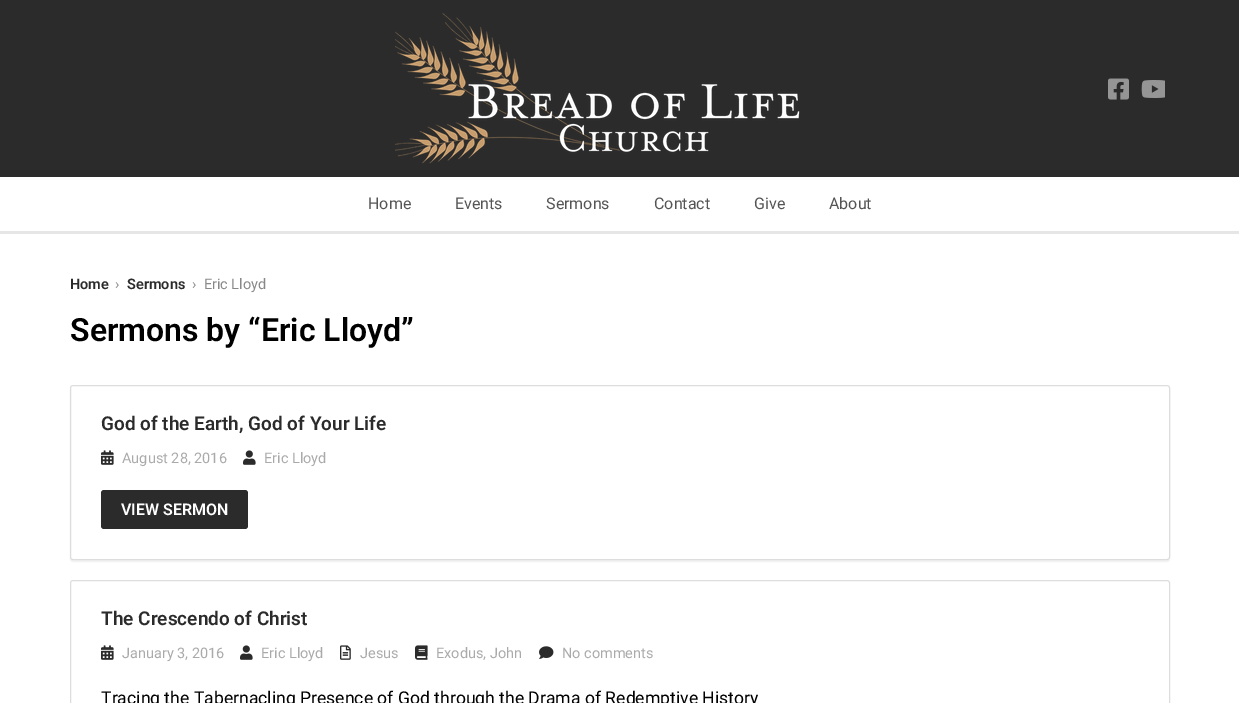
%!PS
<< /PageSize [1239 703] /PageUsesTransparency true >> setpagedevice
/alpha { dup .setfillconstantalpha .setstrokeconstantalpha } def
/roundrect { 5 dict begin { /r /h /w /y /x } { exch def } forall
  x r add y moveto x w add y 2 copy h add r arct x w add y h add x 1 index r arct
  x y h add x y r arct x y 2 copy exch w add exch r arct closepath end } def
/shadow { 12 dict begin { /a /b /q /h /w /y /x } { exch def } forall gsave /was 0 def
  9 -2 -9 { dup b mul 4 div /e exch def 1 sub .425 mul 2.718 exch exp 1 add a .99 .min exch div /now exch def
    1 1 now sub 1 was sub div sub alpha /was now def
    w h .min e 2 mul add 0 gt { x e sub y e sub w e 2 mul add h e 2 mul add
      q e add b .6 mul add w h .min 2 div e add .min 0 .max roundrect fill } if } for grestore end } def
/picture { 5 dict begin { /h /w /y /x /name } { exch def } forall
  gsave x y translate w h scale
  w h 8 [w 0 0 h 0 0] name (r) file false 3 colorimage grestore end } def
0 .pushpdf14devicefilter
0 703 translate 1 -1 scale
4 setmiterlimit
1 setgray
0 0 1239 703 rectfill
0.169 setgray
0 0 1239 177 rectfill
(img1.rgb) 395 13 405 151 picture
(img2.rgb) 1108 78 21 22 picture
(img3.rgb) 1141 80 24 18 picture
0.902 setgray
0 231 1239 3 rectfill
/Roboto-Regular [16 0 0 -16 0 0] selectfont
0.333 setgray
368 209 moveto (Home) show
455 209 moveto (Events) show
546 209 moveto (Sermons) show
654 209 moveto (Contact) show
754 209 moveto (Give) show
829 209 moveto (About) show
/Roboto-SemiBold [14.5 0 0 -14.5 0 0] selectfont
0.169 setgray
70 289 moveto (Home) show
/Roboto-Regular [14.5 0 0 -14.5 0 0] selectfont
0.533 setgray
115 289 moveto (›) show
/Roboto-SemiBold [14.5 0 0 -14.5 0 0] selectfont
0.169 setgray
127 289 moveto (Sermons) show
/Roboto-Regular [14.5 0 0 -14.5 0 0] selectfont
0.533 setgray
192 289 moveto (›  Eric Lloyd) show
/Roboto-SemiBold [32 0 0 -32 0 0] selectfont
0 setgray
70 341 moveto (Sermons by “Eric Lloyd”) show
gsave
newpath 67 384 moveto 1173 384 lineto 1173 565 lineto 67 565 lineto closepath 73 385 moveto 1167 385 lineto 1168.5 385 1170 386.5 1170 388 curveto 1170 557 lineto 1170 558.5 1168.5 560 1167 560 curveto 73 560 lineto 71.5 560 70 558.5 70 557 curveto 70 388 lineto 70 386.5 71.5 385 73 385 curveto closepath eoclip newpath
70 387 1100 175 3 0.5 0.05 shadow
grestore
0.867 setgray
70.5 385.5 1099 174 2.5 roundrect stroke
/Roboto-SemiBold [19 0 0 -19 0 0] selectfont
0.169 setgray
101 430 moveto (God of the Earth, God of Your Life) show
(img4.rgb) 101 450 13 15 picture
/Roboto-Regular [14.5 0 0 -14.5 0 0] selectfont
0.667 setgray
122 463 moveto (August 28, 2016) show
(img5.rgb) 243 450 13 15 picture
264 463 moveto (Eric Lloyd) show
0.169 setgray
101 490 147 39 3 roundrect fill
/Roboto-SemiBold [16 0 0 -16 0 0] selectfont
1 setgray
121 515 moveto (VIEW SERMON) show
0.867 setgray
70.5 580.5 1099 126 2.5 roundrect stroke
/Roboto-SemiBold [19 0 0 -19 0 0] selectfont
0.169 setgray
101 625 moveto (The Crescendo of Christ) show
(img4.rgb) 101 645 13 15 picture
/Roboto-Regular [14.5 0 0 -14.5 0 0] selectfont
0.667 setgray
122 658 moveto (January 3, 2016) show
(img5.rgb) 240 645 13 15 picture
261 658 moveto (Eric Lloyd) show
(img6.rgb) 340 645 11 15 picture
360 658 moveto (Jesus) show
(img7.rgb) 415 645 13 15 picture
436 658 moveto (Exodus, John) show
(img8.rgb) 539 646 15 13 picture
562 658 moveto (No comments) show
/Roboto-Regular [17.6 0 0 -17.6 0 0] selectfont
0 setgray
101 704 moveto (Tracing the Tabernacling Presence of God through the Drama of Redemptive History) show
.poppdf14devicefilter showpage
